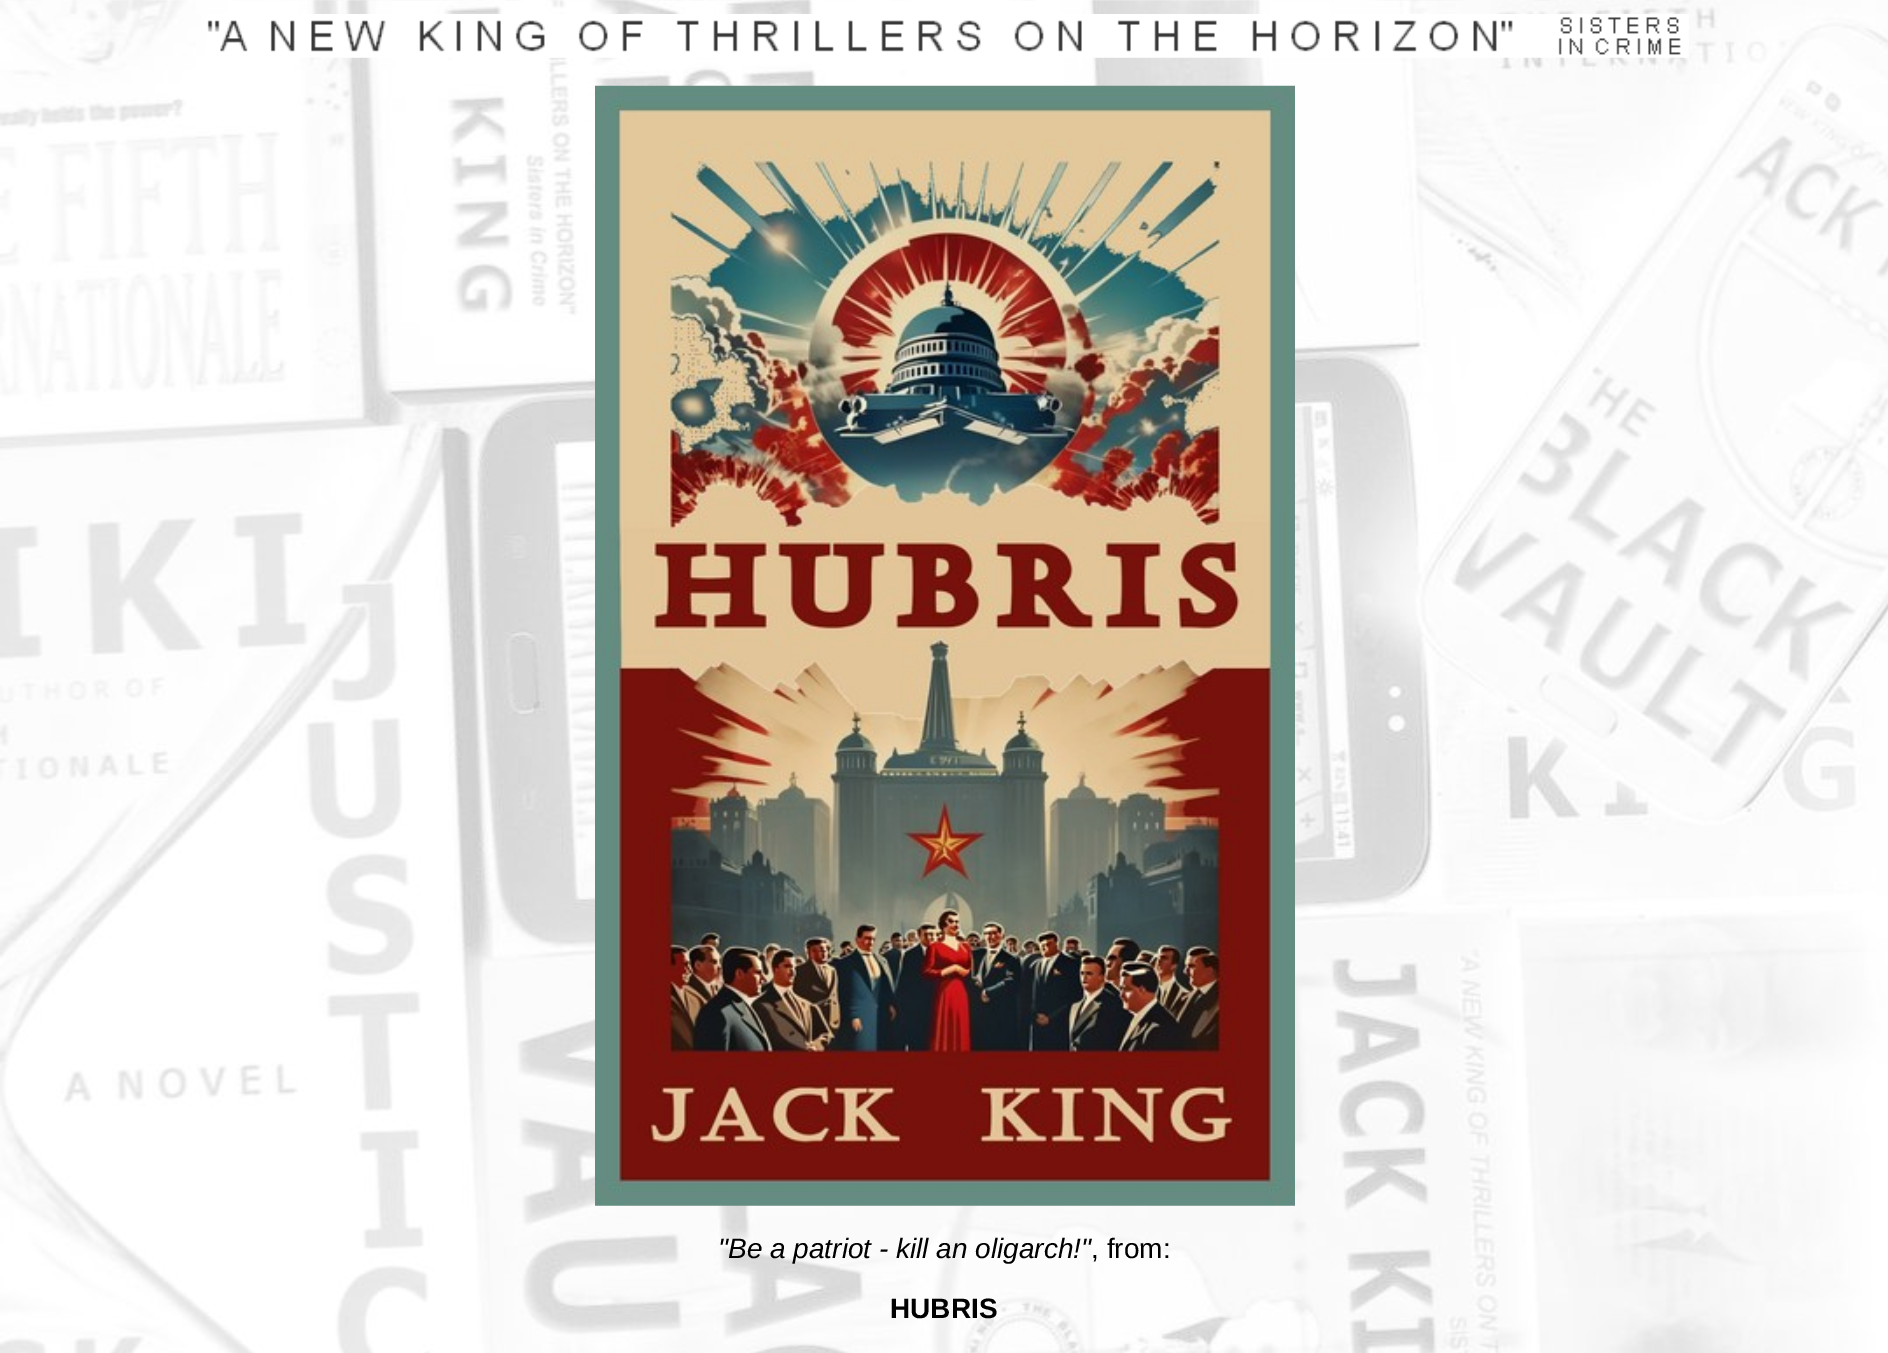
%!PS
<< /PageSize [1888 1353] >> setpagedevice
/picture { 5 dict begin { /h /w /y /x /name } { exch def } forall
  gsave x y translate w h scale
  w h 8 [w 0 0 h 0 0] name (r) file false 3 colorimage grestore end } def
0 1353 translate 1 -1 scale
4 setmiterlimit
1 setgray
0 0 1888 1353 rectfill
(img1.rgb) 0 0 1888 1353 picture
(img2.rgb) 207 14 1482 44 picture
(img3.rgb) 595 85 700 1121 picture
/LiberationSans-Italic [28 0 0 -28 0 0] selectfont
0 setgray
718 1258 moveto ("Be a patriot - kill an oligarch!") show
/LiberationSans-Regular [28 0 0 -28 0 0] selectfont
1091 1258 moveto (, from:) show
/LiberationSans-Bold [28 0 0 -28 0 0] selectfont
890 1318 moveto (HUBRIS) show
showpage
